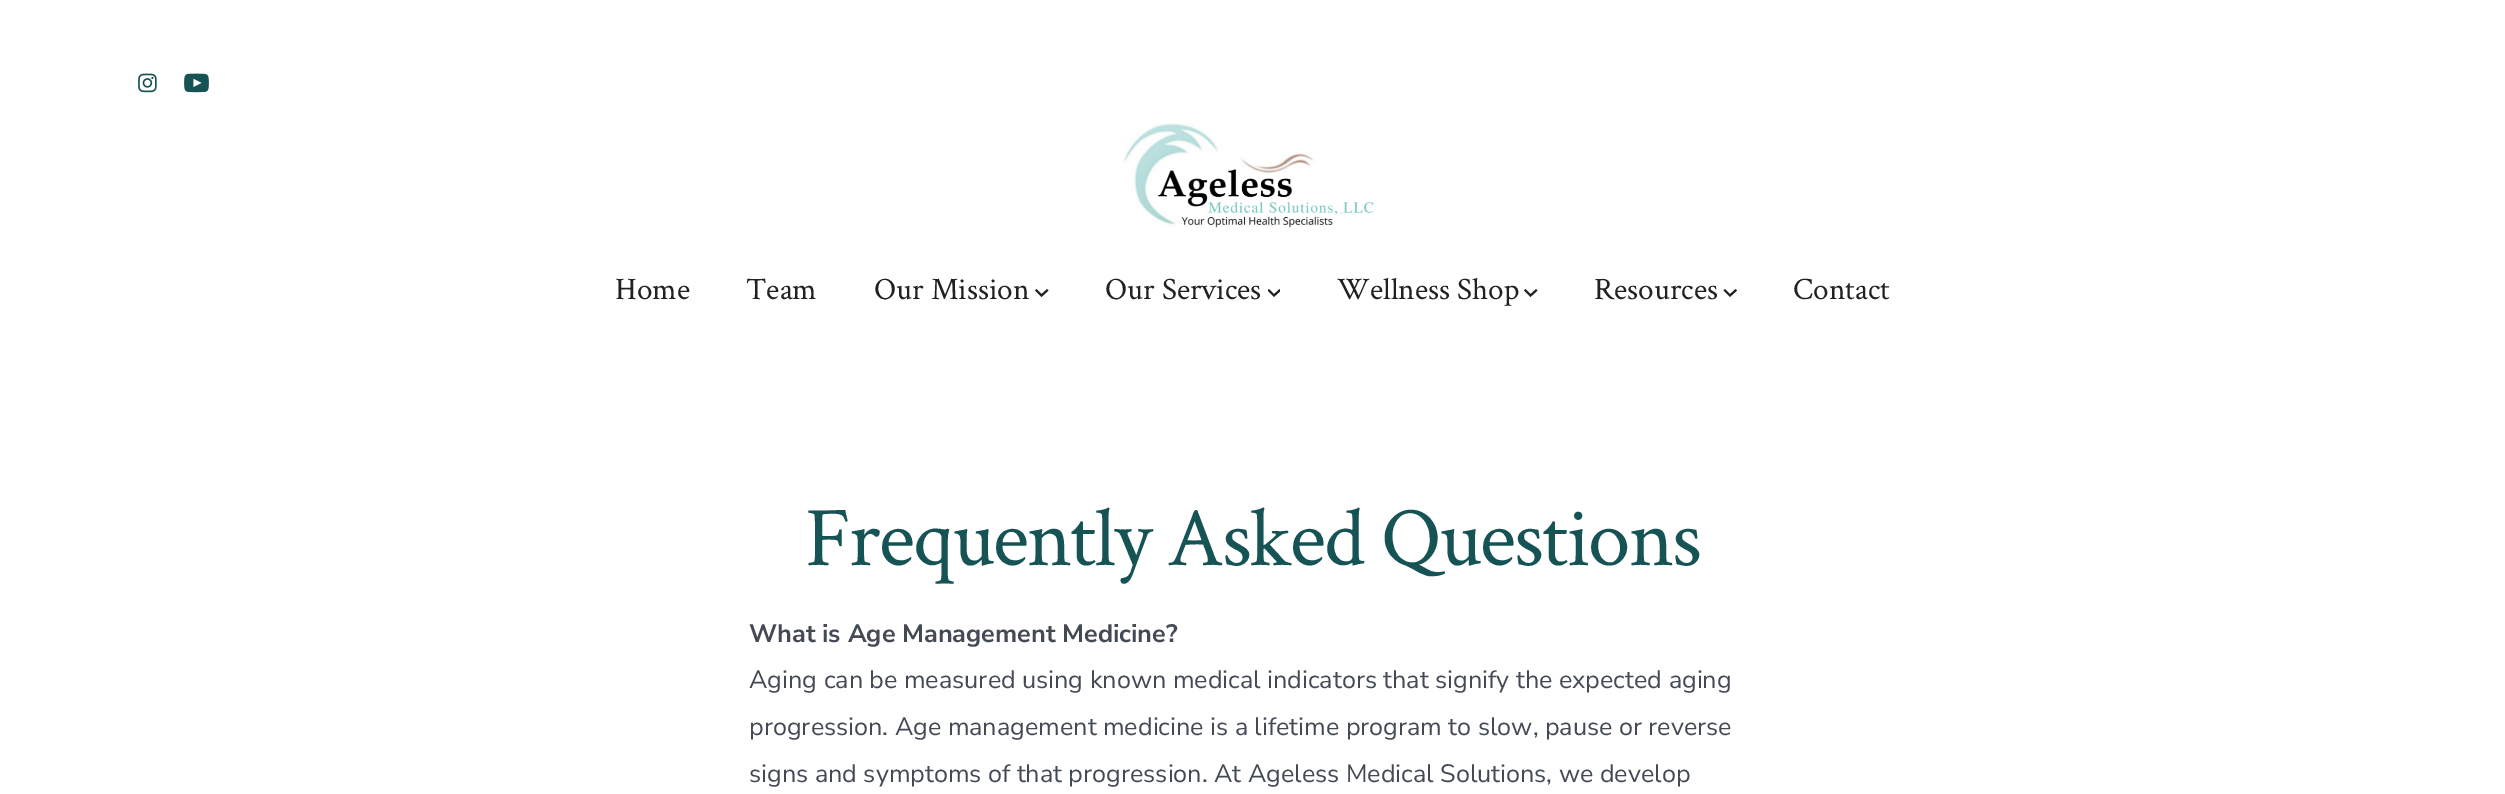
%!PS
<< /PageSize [2505 794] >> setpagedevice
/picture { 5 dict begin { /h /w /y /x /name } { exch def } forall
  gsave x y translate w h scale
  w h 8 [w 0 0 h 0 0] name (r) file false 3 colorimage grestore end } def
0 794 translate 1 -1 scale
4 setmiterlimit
1 setgray
0 0 2505 794 rectfill
(img1.rgb) 138 73 19 20 picture
(img2.rgb) 184 73 25 20 picture
(img3.rgb) 1123 123 251 105 picture
/CrimsonText-Regular [31.25 0 0 -31.25 0 0] selectfont
0.129 setgray
615 299 moveto (Home) show
746 299 moveto (Team) show
874 299 moveto (Our Mission) show
2 setlinewidth
2 setlinecap
newpath 1036.5 290.5 moveto 1041.5 295.5 lineto 1047 290.5 lineto stroke
1105 299 moveto (Our Services) show
gsave
1268 287 12 12 rectclip
newpath 1269 290.5 moveto 1274 295.5 lineto 1279.5 290.5 lineto stroke
grestore
1337 299 moveto (Wellness Shop) show
newpath 1525.5 290.5 moveto 1530.5 295.5 lineto 1536 290.5 lineto stroke
1594 299 moveto (Resources) show
newpath 1725 290.5 moveto 1730 295.5 lineto 1735.5 290.5 lineto stroke
1793 299 moveto (Contact) show
/CrimsonText-Regular [85 0 0 -85 0 0] selectfont
0.086 0.325 0.333 setrgbcolor
805 565 moveto -1.7 0 (Frequently Asked Questions) ashow
/NunitoSans-Bold [25.2 0 0 -25.2 0 0] selectfont
0.263 0.29 0.337 setrgbcolor
749 642 moveto (What is Age Management Medicine?) show
/NunitoSans-Regular [25.2 0 0 -25.2 0 0] selectfont
749 688 moveto (Aging can be measured using known medical indicators that signify the expected aging) show
749 735 moveto (progression. Age management medicine is a lifetime program to slow, pause or reverse) show
749 782 moveto (signs and symptoms of that progression. At Ageless Medical Solutions, we develop) show
showpage
